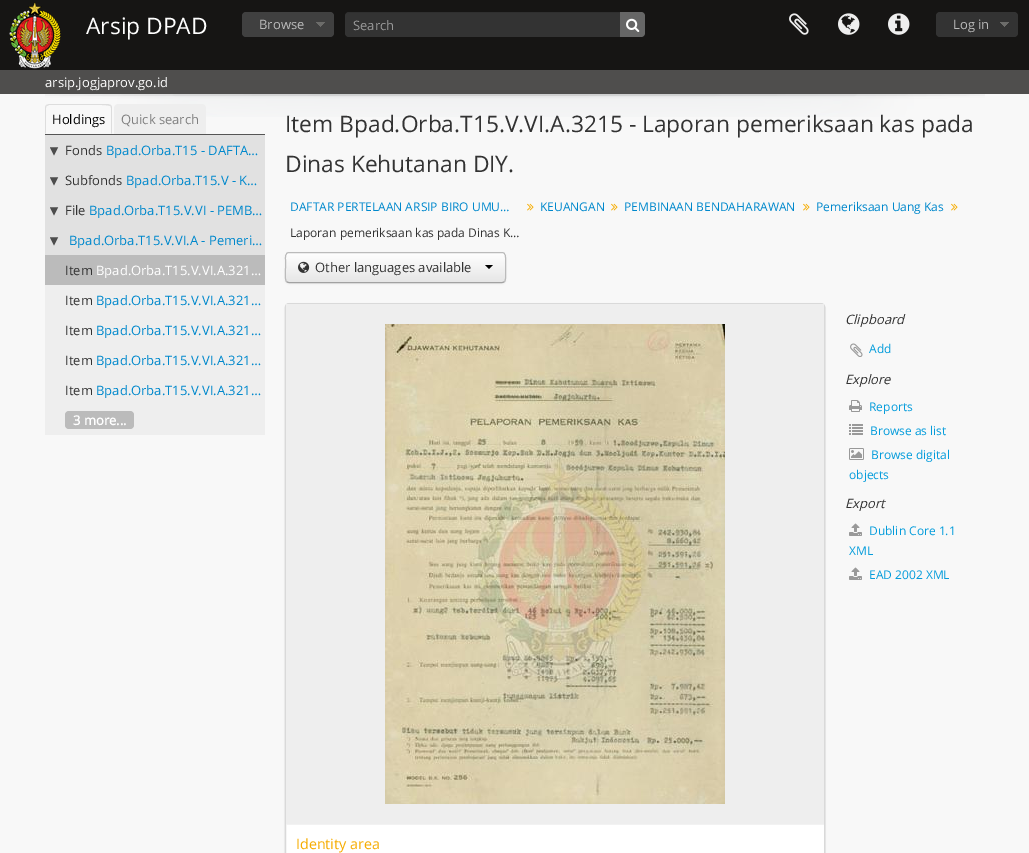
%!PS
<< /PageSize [1029 853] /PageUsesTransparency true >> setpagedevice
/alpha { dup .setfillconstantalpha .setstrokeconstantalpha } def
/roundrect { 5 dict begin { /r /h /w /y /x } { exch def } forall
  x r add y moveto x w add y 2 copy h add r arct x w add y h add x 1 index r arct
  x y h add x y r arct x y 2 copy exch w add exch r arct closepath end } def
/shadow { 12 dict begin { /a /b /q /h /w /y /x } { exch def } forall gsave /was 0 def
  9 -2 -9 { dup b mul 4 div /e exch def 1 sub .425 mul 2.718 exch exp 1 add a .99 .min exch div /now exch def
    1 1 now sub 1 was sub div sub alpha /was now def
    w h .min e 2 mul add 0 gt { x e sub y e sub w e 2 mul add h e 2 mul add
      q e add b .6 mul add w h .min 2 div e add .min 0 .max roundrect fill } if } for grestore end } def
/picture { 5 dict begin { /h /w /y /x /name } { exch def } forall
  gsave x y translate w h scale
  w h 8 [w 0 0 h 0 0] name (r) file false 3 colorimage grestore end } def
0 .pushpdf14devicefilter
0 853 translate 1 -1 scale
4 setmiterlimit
0.973 setgray
0 0 1029 853 rectfill
0.086 0.082 0.078 setrgbcolor
0 0 1029 70 rectfill
(img1.rgb) 9 2 52 67 picture
/OpenSans-Regular [22.75 0 0 -22.75 0 0] selectfont
1 setgray
86 34 moveto (Arsip DPAD) show
0.251 setgray
242 12 92 25 4 roundrect fill
(img2.rgb) 316 22 9 5 picture
/OpenSans-Regular [13 0 0 -13 0 0] selectfont
0.733 setgray
259 29 moveto (Browse) show
0.2 setgray
345 12 300 25 4 roundrect fill
0.07 alpha
0 setgray
newpath 349 13 moveto 643 13 lineto 644 13 645 14 645 16 curveto 645 14 643 12 641 12 curveto 349 12 lineto 346 12 345 14 345 16 curveto 345 14 347 13 349 13 curveto closepath fill
1 alpha
0.6 setgray
353 30 moveto (Search) show
0.4 setgray
newpath 620 12 moveto 641 12 lineto 643 12 645 14 645 16 curveto 645 33 lineto 645 35 643 37 641 37 curveto 620 37 lineto closepath fill
(img3.rgb) 626 18 14 14 picture
(img4.rgb) 789 13 20 22 picture
(img5.rgb) 838 13 22 22 picture
(img6.rgb) 888 13 22 22 picture
0.2 setgray
936 12 82 25 4 roundrect fill
(img7.rgb) 1000 22 9 5 picture
0.733 setgray
953 29 moveto (Log in) show
0.31 0.306 0.302 setrgbcolor
0 70 1029 24 rectfill
1 setgray
45 87 moveto (arsip.jogjaprov.go.id) show
(img8.rgb) 45 94 940 23 picture
0.333 setgray
45 134 220 1 rectfill
0.867 setgray
newpath 49 104 moveto 46 105 lineto 47 106 lineto 49 105 lineto 59 105 lineto 65 105 108 104 110 106 curveto 111 105 lineto 108 104 lineto closepath fill
newpath 112 134 moveto 112 108 lineto 112 107 111.5 106 111 105 curveto 110 106 lineto 111 106 111 107 111 108 curveto 111 133 lineto closepath fill
newpath 45 134 moveto 46 133 lineto 46 108 lineto 46 107 46 106 47 106 curveto 46 105 lineto 45.5 106 45 107 45 108 curveto closepath fill
0 setgray
52 124 moveto (Holdings) show
0.933 setgray
newpath 118 104 moveto 202 104 lineto 204 104 206 106 206 108 curveto 206 134 lineto 114 134 lineto 114 108 lineto 114 106 116 104 118 104 curveto closepath fill
0.502 setgray
121 124 moveto (Quick search) show
0.933 setgray
45 285 220 150 rectfill
0.882 setgray
45 135 220 120 rectfill
(img9.rgb) 50 147 9 9 picture
0.2 setgray
65 155 moveto (Fonds) show
0 0.533 0.8 setrgbcolor
106 155 moveto (Bpad.Orba.T15 - DAFTA…) show
(img9.rgb) 50 177 9 9 picture
0.2 setgray
65 185 moveto (Subfonds) show
0 0.533 0.8 setrgbcolor
126 185 moveto (Bpad.Orba.T15.V - K…) show
(img9.rgb) 50 207 9 9 picture
0.2 setgray
65 215 moveto (File) show
0 0.533 0.8 setrgbcolor
89 215 moveto (Bpad.Orba.T15.V.VI - PEMB…) show
(img9.rgb) 50 237 9 9 picture
69 245 moveto (Bpad.Orba.T15.V.VI.A - Pemeri…) show
0.733 setgray
45 255 220 30 rectfill
0.2 setgray
65 275 moveto (Item) show
1 setgray
96 275 moveto (Bpad.Orba.T15.V.VI.A.321…) show
0.2 setgray
65 305 moveto (Item) show
0 0.533 0.8 setrgbcolor
96 305 moveto (Bpad.Orba.T15.V.VI.A.321…) show
0.2 setgray
65 335 moveto (Item) show
0 0.533 0.8 setrgbcolor
96 335 moveto (Bpad.Orba.T15.V.VI.A.321…) show
0.2 setgray
65 365 moveto (Item) show
0 0.533 0.8 setrgbcolor
96 365 moveto (Bpad.Orba.T15.V.VI.A.321…) show
0.2 setgray
65 395 moveto (Item) show
0 0.533 0.8 setrgbcolor
96 395 moveto (Bpad.Orba.T15.V.VI.A.321…) show
0.733 setgray
65 411 69 18 4 roundrect fill
/OpenSans-Bold [13 0 0 -13 0 0] selectfont
1 setgray
73 425 moveto (3 more...) show
/OpenSans-Regular [22.75 0 0 -22.75 0 0] selectfont
0.2 setgray
285 132 moveto (Item Bpad.Orba.T15.V.VI.A.3215 - Laporan pemeriksaan kas pada) show
285 172 moveto (Dinas Kehutanan DIY.) show
/OpenSans-Regular [12 0 0 -12 0 0] selectfont
0 0.533 0.8 setrgbcolor
290 211 moveto (DAFTAR PERTELAAN ARSIP BIRO UMU…) show
(img10.rgb) 527 203 7 8 picture
540 211 moveto (KEUANGAN) show
(img10.rgb) 611 203 7 8 picture
624 211 moveto (PEMBINAAN BENDAHARAWAN) show
(img10.rgb) 803 203 7 8 picture
816 211 moveto (Pemeriksaan Uang Kas) show
(img10.rgb) 951 203 7 8 picture
0.2 setgray
290 237 moveto (Laporan pemeriksaan kas pada Dinas K…) show
0 setgray
285 253 221 31 4 1 0.05 shadow
gsave
285 252 221 31 4 roundrect clip newpath
gsave newpath 285 253 moveto 506 253 lineto 506 282 lineto 285 282 lineto closepath clip newpath
<< /ShadingType 2 /ColorSpace /DeviceRGB /Coords [396 253 396 282] /Extend [true true] /Function << /FunctionType 2 /Domain [0 1] /C0 [1 1 1] /C1 [0.902 0.902 0.902] /N 1 >> >> shfill grestore
grestore
0.635 setgray
newpath 504.5 281.5 moveto 504 282 503 282.5 502 282.5 curveto 289 282.5 lineto 288 282.5 287 282 286.5 281.5 curveto stroke
0.733 setgray
newpath 286.5 281.5 moveto 284.5 279 285.5 270.5 285.5 267.5 curveto 285.5 260 lineto 285.5 257 285 252.5 289 252.5 curveto 502 252.5 lineto 506 252.5 505.5 257 505.5 260 curveto 505.5 267.5 lineto 505.5 270.5 506.5 279 504.5 281.5 curveto stroke
(img11.rgb) 298 261 12 12 picture
/OpenSans-Regular [13 0 0 -13 0 0] selectfont
0.2 setgray
315 272 moveto (Other languages available) show
0 setgray
newpath 485 265 moveto 493 265 lineto 489 269 lineto closepath fill
/OpenSans-Italic [13 0 0 -13 0 0] selectfont
0.2 setgray
845 324 moveto (Clipboard) show
(img12.rgb) 850 343 13 14 picture
/OpenSans-Regular [12 0 0 -12 0 0] selectfont
0.016 0.612 0.859 setrgbcolor
869 353 moveto (Add) show
/OpenSans-Italic [13 0 0 -13 0 0] selectfont
0.2 setgray
845 384 moveto (Explore) show
(img13.rgb) 849 400 13 12 picture
/OpenSans-Regular [12 0 0 -12 0 0] selectfont
0.016 0.612 0.859 setrgbcolor
869 411 moveto (Reports) show
(img14.rgb) 849 424 14 11 picture
870 435 moveto (Browse as list) show
(img15.rgb) 849 448 15 12 picture
871 459 moveto (Browse digital) show
849 479 moveto (objects) show
/OpenSans-Italic [13 0 0 -13 0 0] selectfont
0.2 setgray
845 508 moveto (Export) show
(img16.rgb) 849 523 13 13 picture
/OpenSans-Regular [12 0 0 -12 0 0] selectfont
0.016 0.612 0.859 setrgbcolor
869 535 moveto (Dublin Core 1.1) show
849 555 moveto (XML) show
(img16.rgb) 849 567 13 13 picture
869 579 moveto (EAD 2002 XML) show
0 setgray
285 304 540 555 4 0.5 0.2 shadow
1 setgray
285.5 303.5 539 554 3.5 roundrect gsave fill grestore
0.851 setgray
stroke
0.933 setgray
286 304 538 520 rectfill
(img17.rgb) 385 324 340 480 picture
0.949 setgray
286 824 538 1 rectfill
/OpenSans-Regular [14.25 0 0 -14.25 0 0] selectfont
0.965 0.675 0 setrgbcolor
296 849 moveto (Identity area) show
.poppdf14devicefilter showpage
